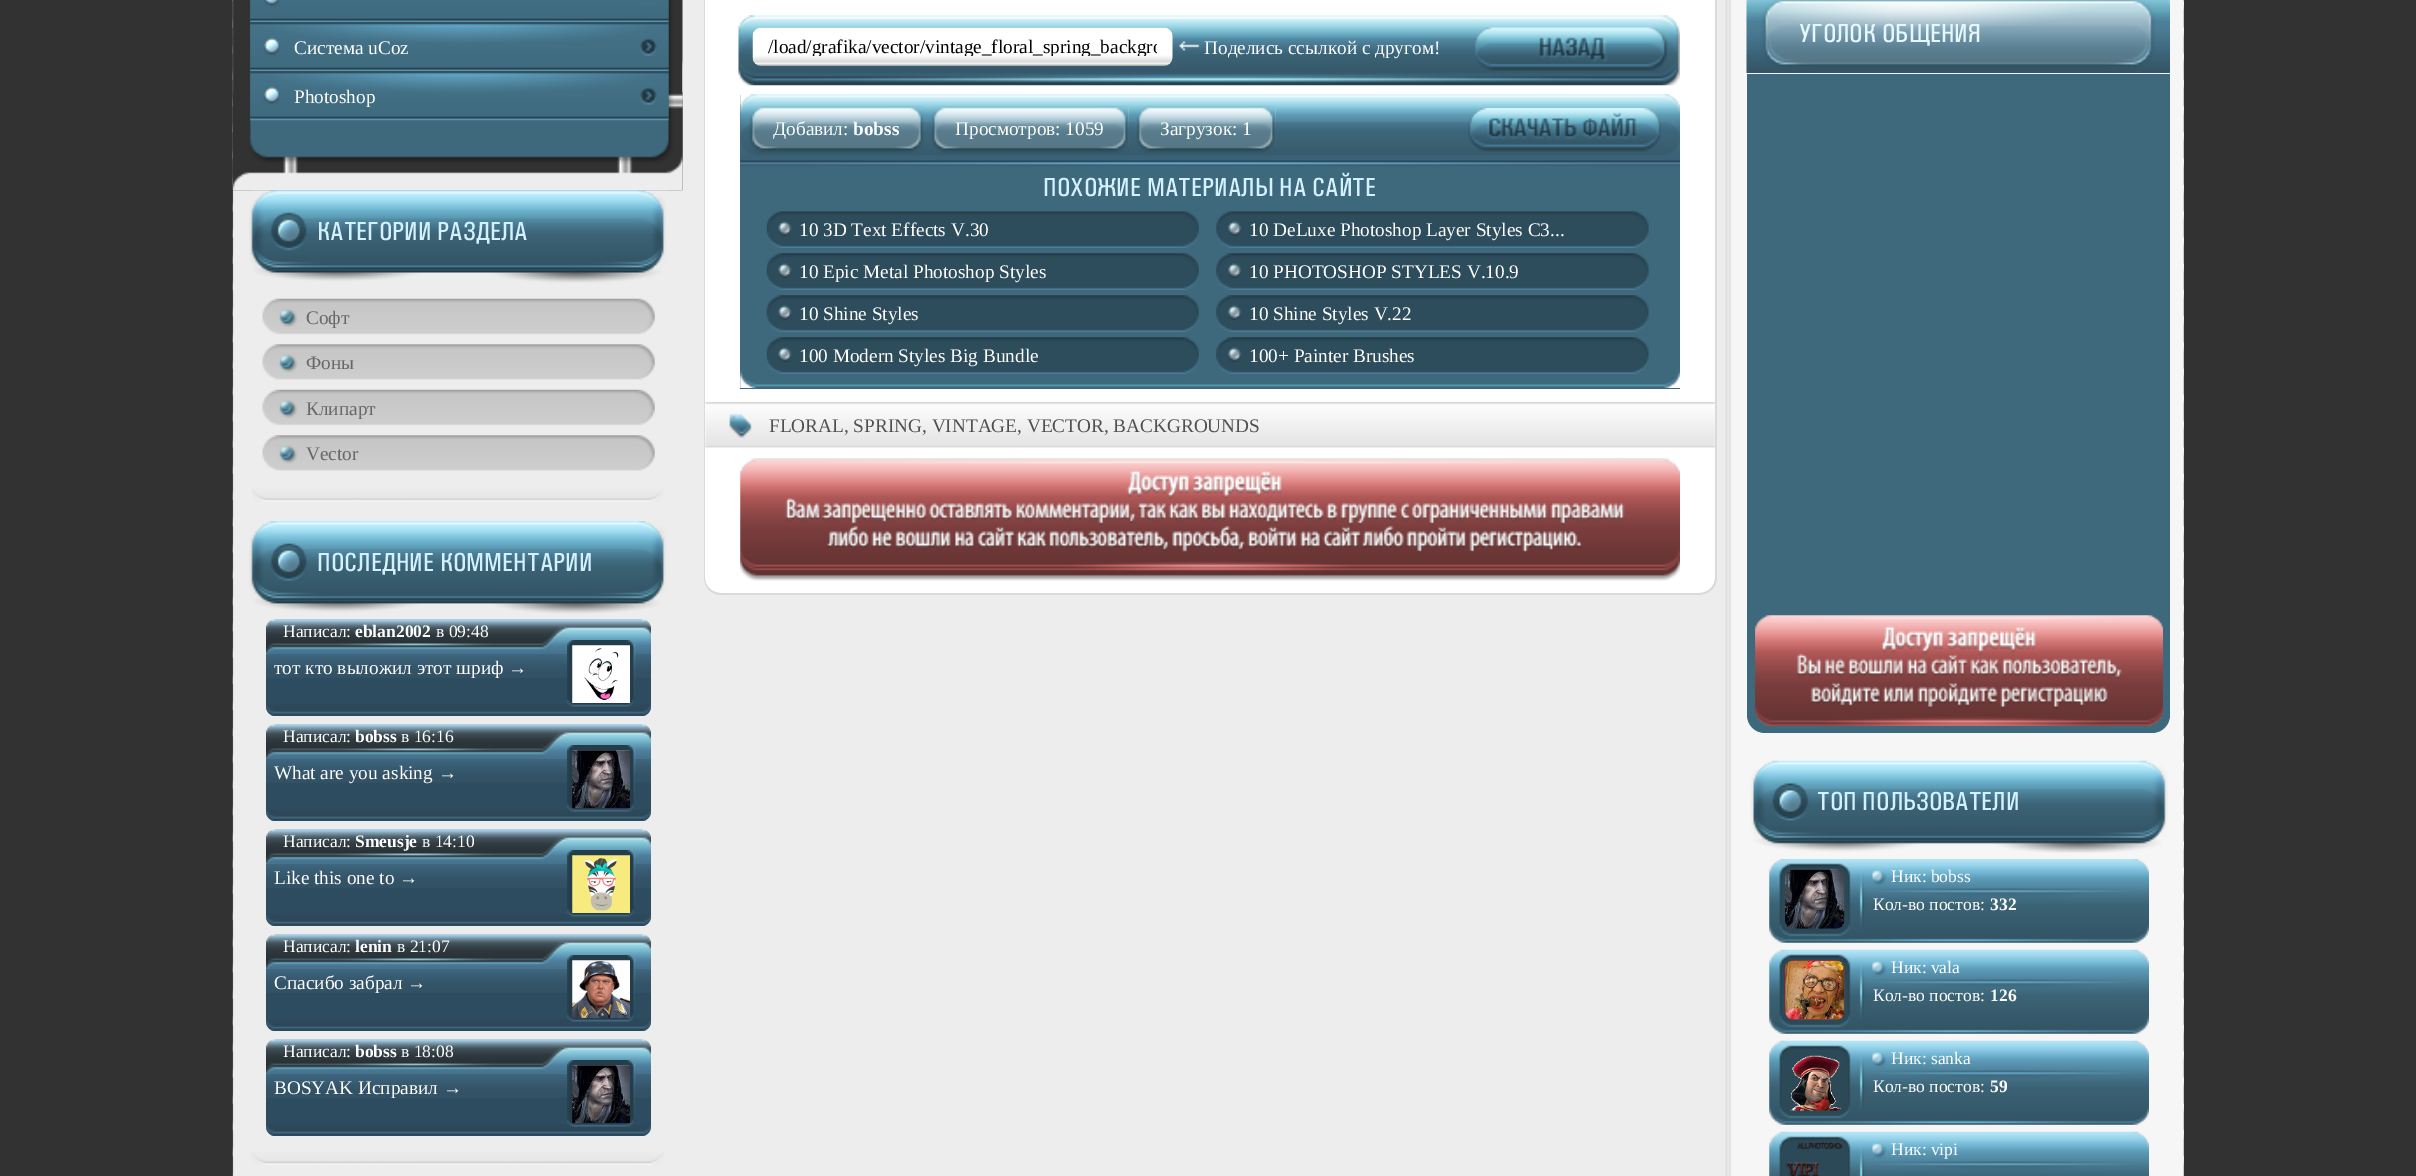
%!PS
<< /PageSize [2416 1176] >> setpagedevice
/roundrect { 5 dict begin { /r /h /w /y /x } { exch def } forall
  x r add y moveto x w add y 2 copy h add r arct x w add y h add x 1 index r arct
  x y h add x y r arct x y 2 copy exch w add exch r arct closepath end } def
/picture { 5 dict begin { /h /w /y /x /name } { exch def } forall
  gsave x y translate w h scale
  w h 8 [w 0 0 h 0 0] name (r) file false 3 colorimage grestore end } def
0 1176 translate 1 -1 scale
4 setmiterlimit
0.196 setgray
0 0 2416 1176 rectfill
(img1.rgb) 232 0 1952 1176 picture
(img6.rgb) 249 190 417 93 picture
(img2.rgb) 232 0 451 191 picture
(img3.rgb) 250 0 419 23 picture
(img4.rgb) 250 22 419 50 picture
/LiberationSerif-Regular [19.25 0 0 -19.25 0 0] selectfont
1 setgray
294 54 moveto (Система uCoz) show
(img5.rgb) 250 71 419 50 picture
294 103 moveto (Photoshop) show
/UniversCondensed-Medium [26.25 0 0 -26.25 0 0] selectfont
0.827 0.945 1 setrgbcolor
317 240 moveto (КАТЕГОРИИ РАЗДЕЛА) show
(img7.rgb) 262 298 393 37 picture
/LiberationSerif-Regular [19.25 0 0 -19.25 0 0] selectfont
0.404 setgray
306 324 moveto (Софт) show
(img8.rgb) 262 344 393 36 picture
306 369 moveto (Фоны) show
(img7.rgb) 262 389 393 37 picture
306 415 moveto (Клипарт) show
(img8.rgb) 262 435 393 36 picture
306 460 moveto (Vector) show
(img9.rgb) 252 488 412 14 picture
(img10.rgb) 249 521 417 93 picture
/UniversCondensed-Medium [26.25 0 0 -26.25 0 0] selectfont
0.827 0.945 1 setrgbcolor
317 571 moveto (ПОСЛЕДНИЕ КОММЕНТАРИИ) show
0.176 0.298 0.376 setrgbcolor
266 620 385 96 9 roundrect fill
(img11.rgb) 266 704 385 11 picture
(img12.rgb) 266 619 385 35 picture
/LiberationSerif-Regular [17.5 0 0 -17.5 0 0] selectfont
1 setgray
283 637 moveto (Написал:) show
/LiberationSerif-Bold [17.5 0 0 -17.5 0 0] selectfont
355 637 moveto (eblan2002) show
/LiberationSerif-Regular [17.5 0 0 -17.5 0 0] selectfont
436 637 moveto (в 09:48) show
(img13.rgb) 266 654 385 24 picture
/LiberationSerif-Regular [19.25 0 0 -19.25 0 0] selectfont
274 674 moveto (тот кто выложил этот шриф →) show
(img14.rgb) 567 640 69 67 picture
(img15.rgb) 572 645 58 58 picture
0.176 0.298 0.376 setrgbcolor
266 725 385 96 9 roundrect fill
(img11.rgb) 266 809 385 11 picture
(img12.rgb) 266 724 385 35 picture
/LiberationSerif-Regular [17.5 0 0 -17.5 0 0] selectfont
1 setgray
283 742 moveto (Написал:) show
/LiberationSerif-Bold [17.5 0 0 -17.5 0 0] selectfont
355 742 moveto (bobss) show
/LiberationSerif-Regular [17.5 0 0 -17.5 0 0] selectfont
401 742 moveto (в 16:16) show
(img13.rgb) 266 759 385 24 picture
/LiberationSerif-Regular [19.25 0 0 -19.25 0 0] selectfont
274 779 moveto (What are you asking →) show
(img14.rgb) 567 745 69 67 picture
(img16.rgb) 572 750 58 58 picture
0.176 0.298 0.376 setrgbcolor
266 830 385 96 9 roundrect fill
(img11.rgb) 266 914 385 11 picture
(img12.rgb) 266 829 385 35 picture
/LiberationSerif-Regular [17.5 0 0 -17.5 0 0] selectfont
1 setgray
283 847 moveto (Написал:) show
/LiberationSerif-Bold [17.5 0 0 -17.5 0 0] selectfont
355 847 moveto (Smeusje) show
/LiberationSerif-Regular [17.5 0 0 -17.5 0 0] selectfont
422 847 moveto (в 14:10) show
(img13.rgb) 266 864 385 24 picture
/LiberationSerif-Regular [19.25 0 0 -19.25 0 0] selectfont
274 884 moveto (Like this one to →) show
(img14.rgb) 567 850 69 67 picture
(img17.rgb) 572 855 58 58 picture
0.176 0.298 0.376 setrgbcolor
266 935 385 96 9 roundrect fill
(img11.rgb) 266 1019 385 11 picture
(img18.rgb) 266 934 385 35 picture
/LiberationSerif-Regular [17.5 0 0 -17.5 0 0] selectfont
1 setgray
283 952 moveto (Написал:) show
/LiberationSerif-Bold [17.5 0 0 -17.5 0 0] selectfont
355 952 moveto (lenin) show
/LiberationSerif-Regular [17.5 0 0 -17.5 0 0] selectfont
397 952 moveto (в 21:07) show
(img13.rgb) 266 969 385 24 picture
/LiberationSerif-Regular [19.25 0 0 -19.25 0 0] selectfont
274 989 moveto (Спасибо забрал →) show
(img14.rgb) 567 955 69 67 picture
(img19.rgb) 572 960 58 58 picture
0.176 0.298 0.376 setrgbcolor
266 1040 385 96 9 roundrect fill
(img11.rgb) 266 1124 385 11 picture
(img20.rgb) 266 1039 385 35 picture
/LiberationSerif-Regular [17.5 0 0 -17.5 0 0] selectfont
1 setgray
283 1057 moveto (Написал:) show
/LiberationSerif-Bold [17.5 0 0 -17.5 0 0] selectfont
355 1057 moveto (bobss) show
/LiberationSerif-Regular [17.5 0 0 -17.5 0 0] selectfont
401 1057 moveto (в 18:08) show
(img13.rgb) 266 1074 385 24 picture
/LiberationSerif-Regular [19.25 0 0 -19.25 0 0] selectfont
274 1094 moveto (BOSYAK Исправил →) show
(img21.rgb) 567 1060 69 67 picture
(img16.rgb) 572 1065 58 58 picture
(img22.rgb) 251 1152 413 13 picture
newpath 704 -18 moveto 1717 -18 lineto 1717 577 lineto 1717 587 1709 595 1699 595 curveto 722 595 lineto 712 595 704 587 704 577 curveto closepath fill
0.855 setgray
newpath 704 -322 moveto 1717 -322 lineto 1717 578 lineto 1717 587 1709 595 1699 595 curveto 721 595 lineto 711 595 704 587 704 578 curveto closepath 705 -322 moveto 1715 -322 lineto 1715 578 lineto 1715 586 1708 593 1699 593 curveto 721 593 lineto 712 593 705 586 705 578 curveto closepath eofill
(img23.rgb) 738 15 942 71 picture
(img24.rgb) 752 27 421 39 picture
gsave
768 35 389 21 rectclip
0 setgray
768 53 moveto (/load/grafika/vector/vintage_floral_spring_backgro) show
grestore
(img25.rgb) 1179 41 21 10 picture
1 setgray
1204 54 moveto (Поделись ссылкой с другом!) show
(img26.rgb) 1475 27 193 44 picture
0.243 0.408 0.486 setrgbcolor
740 95 940 294 rectfill
(img27.rgb) 740 94 940 294 picture
(img28.rgb) 749 106 175 47 picture
1 setgray
773 135 moveto (Добавил:) show
/LiberationSerif-Bold [19.25 0 0 -19.25 0 0] selectfont
853 135 moveto (bobss) show
(img29.rgb) 931 106 198 48 picture
/LiberationSerif-Regular [19.25 0 0 -19.25 0 0] selectfont
955 135 moveto (Просмотров: 1059) show
(img30.rgb) 1136 106 140 47 picture
1160 135 moveto (Загрузок: 1) show
(img31.rgb) 1468 108 193 44 picture
/UniversCondensed-Medium [26.25 0 0 -26.25 0 0] selectfont
0.827 0.945 1 setrgbcolor
1043 196 moveto (ПОХОЖИЕ МАТЕРИАЛЫ НА САЙТЕ) show
(img32.rgb) 766 211 433 37 picture
/LiberationSerif-Regular [19.25 0 0 -19.25 0 0] selectfont
1 setgray
799 236 moveto (10 3D Text Effects V.30) show
(img33.rgb) 1216 211 433 37 picture
1249 236 moveto (10 DeLuxe Photoshop Layer Styles C3...) show
(img34.rgb) 766 253 433 37 picture
799 278 moveto (10 Epic Metal Photoshop Styles) show
(img35.rgb) 1216 253 433 37 picture
1249 278 moveto (10 PHOTOSHOP STYLES V.10.9) show
(img34.rgb) 766 295 433 37 picture
799 320 moveto (10 Shine Styles) show
(img35.rgb) 1216 295 433 37 picture
1249 320 moveto (10 Shine Styles V.22) show
(img34.rgb) 766 337 433 37 picture
799 362 moveto (100 Modern Styles Big Bundle) show
(img35.rgb) 1216 337 433 37 picture
1249 362 moveto (100+ Painter Brushes) show
(img36.rgb) 705 402 1010 46 picture
0.31 setgray
769 432 moveto (FLORAL, SPRING, VINTAGE, VECTOR, BACKGROUNDS) show
(img37.rgb) 740 458 940 123 picture
(img38.rgb) 1746 0 424 73 picture
/UniversCondensed-Medium [26.25 0 0 -26.25 0 0] selectfont
0.902 0.969 1 setrgbcolor
1799 42 moveto (УГОЛОК ОБЩЕНИЯ) show
0.243 0.408 0.486 setrgbcolor
newpath 1747 74 moveto 2170 74 lineto 2170 715 lineto 2170 725 2162 733 2152 733 curveto 1765 733 lineto 1755 733 1747 725 1747 715 curveto closepath fill
(img39.rgb) 1755 615 408 111 picture
(img40.rgb) 1755 615 408 111 picture
(img41.rgb) 1750 760 418 93 picture
0.827 0.945 1 setrgbcolor
1817 810 moveto (ТОП ПОЛЬЗОВАТЕЛИ) show
(img42.rgb) 1769 858 380 85 picture
(img43.rgb) 1785 869 60 60 picture
/LiberationSerif-Regular [17.5 0 0 -17.5 0 0] selectfont
1 setgray
1891 882 moveto (Ник: bobss) show
1873 910 moveto (Кол-во постов:) show
/LiberationSerif-Bold [17.5 0 0 -17.5 0 0] selectfont
1990 910 moveto (332) show
(img44.rgb) 1769 949 380 85 picture
(img45.rgb) 1785 960 60 60 picture
/LiberationSerif-Regular [17.5 0 0 -17.5 0 0] selectfont
1891 973 moveto (Ник: vala) show
1873 1001 moveto (Кол-во постов:) show
/LiberationSerif-Bold [17.5 0 0 -17.5 0 0] selectfont
1990 1001 moveto (126) show
(img46.rgb) 1769 1040 380 85 picture
(img47.rgb) 1790 1055 51 56 picture
/LiberationSerif-Regular [17.5 0 0 -17.5 0 0] selectfont
1891 1064 moveto (Ник: sanka) show
1873 1092 moveto (Кол-во постов:) show
/LiberationSerif-Bold [17.5 0 0 -17.5 0 0] selectfont
1990 1092 moveto (59) show
(img48.rgb) 1769 1131 380 45 picture
(img49.rgb) 1785 1142 58 34 picture
/LiberationSerif-Regular [17.5 0 0 -17.5 0 0] selectfont
1891 1155 moveto (Ник: vipi) show
showpage
